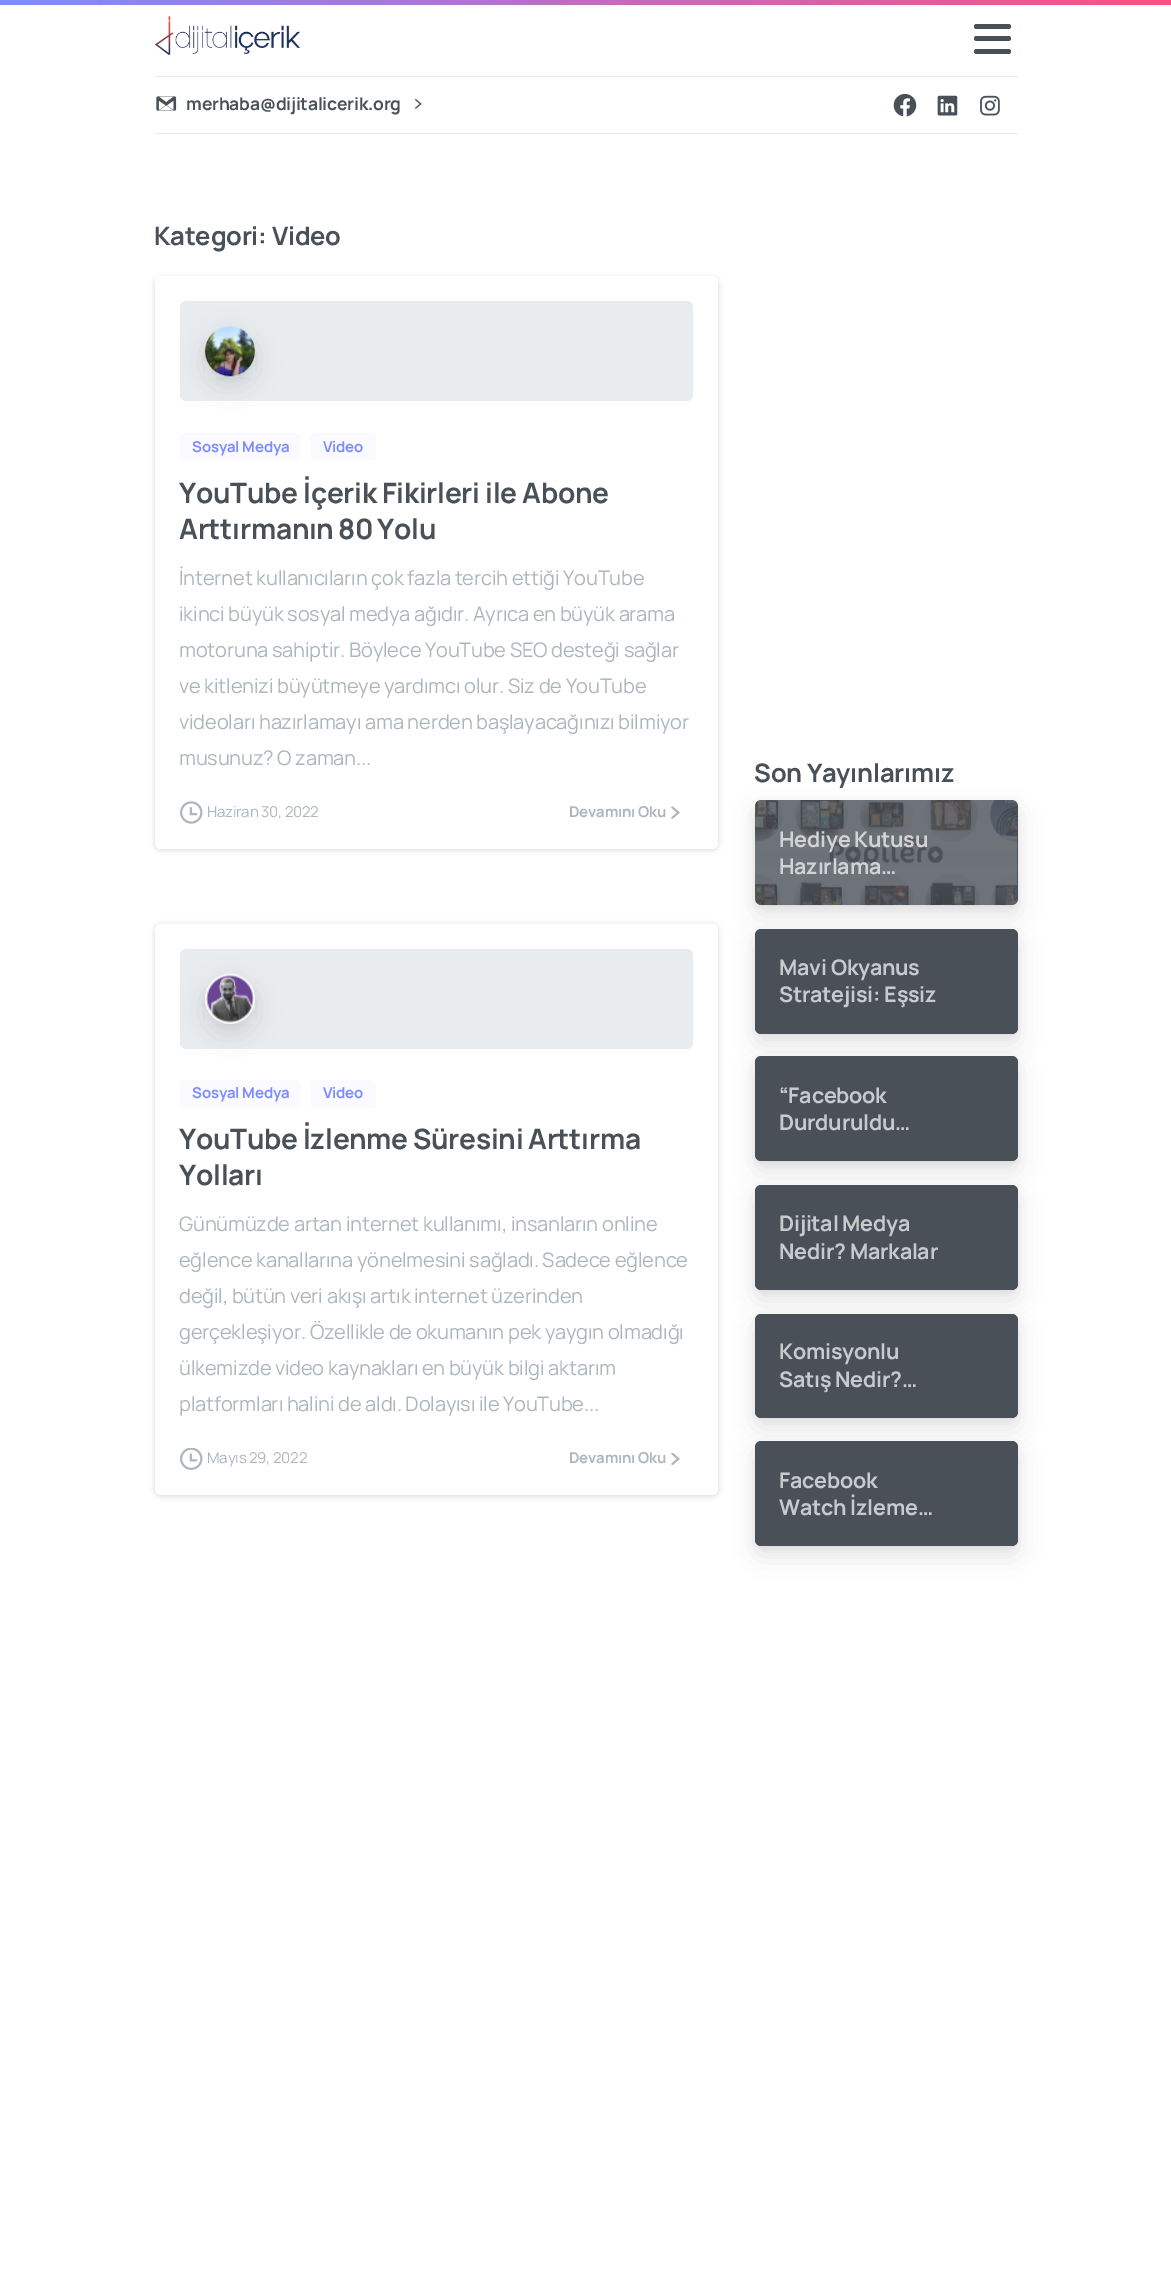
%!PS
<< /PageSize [1171 2293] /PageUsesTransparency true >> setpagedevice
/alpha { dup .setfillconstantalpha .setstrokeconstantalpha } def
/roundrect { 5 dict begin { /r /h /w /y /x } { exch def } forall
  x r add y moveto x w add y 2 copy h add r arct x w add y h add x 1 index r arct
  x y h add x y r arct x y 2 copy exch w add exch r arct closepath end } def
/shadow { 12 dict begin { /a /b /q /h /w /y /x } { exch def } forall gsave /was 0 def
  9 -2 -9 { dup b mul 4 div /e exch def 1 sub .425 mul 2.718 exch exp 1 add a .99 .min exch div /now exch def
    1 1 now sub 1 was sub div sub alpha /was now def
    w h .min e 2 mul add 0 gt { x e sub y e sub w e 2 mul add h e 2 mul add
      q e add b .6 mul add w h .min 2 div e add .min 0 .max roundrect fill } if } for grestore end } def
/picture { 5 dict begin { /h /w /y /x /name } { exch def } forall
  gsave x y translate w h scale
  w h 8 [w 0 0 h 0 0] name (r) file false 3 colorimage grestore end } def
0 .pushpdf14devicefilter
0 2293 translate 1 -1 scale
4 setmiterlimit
1 setgray
0 0 1171 2293 rectfill
gsave newpath 0 0 moveto 1171 0 lineto 1171 5 lineto 0 5 lineto closepath clip newpath
<< /ShadingType 2 /ColorSpace /DeviceRGB /Coords [0 2.5 1171 2.5] /Extend [true true] /Function << /FunctionType 2 /Domain [0 1] /C0 [0.49 0.553 1] /C1 [1 0.31 0.506] /N 1 >> >> shfill grestore
(img1.rgb) 155 16 146 39 picture
0.286 0.314 0.341 setrgbcolor
974 36 37 5 2.5 roundrect fill
974 24 37 5 2.5 roundrect fill
974 49 37 5 2.5 roundrect fill
0.914 0.925 0.937 setrgbcolor
155 76 863 1 rectfill
(img2.rgb) 156 96 21 15 picture
/Manrope-Bold [17.5 0 0 -17.5 0 0] selectfont
0.286 0.314 0.341 setrgbcolor
186 110 moveto -0.2 0 (merhaba@dijitalicerik.org) ashow
(img3.rgb) 415 99 7 10 picture
(img4.rgb) 893 93 24 24 picture
(img5.rgb) 937 95 21 21 picture
(img6.rgb) 980 95 20 21 picture
0.914 0.925 0.937 setrgbcolor
155 133 863 1 rectfill
/Manrope-Bold [25.5 0 0 -25.5 0 0] selectfont
0.286 0.314 0.341 setrgbcolor
154 245 moveto -0.25 0 (Kategori: Video) ashow
0 setgray
155 278 563 572 6 3 0.15 shadow
1 setgray
155 276 563 573 6 roundrect fill
0.914 0.925 0.937 setrgbcolor
180 301 513 100 6 roundrect fill
0 setgray
205 336 50 50 25 12 0.1 shadow
205 329 50 50 25 4 0.05 shadow
(img7.rgb) 205 326 50 51 picture
0.984 0.984 1 setrgbcolor
180 433 121 27 5 roundrect fill
/Manrope-Bold [15 0 0 -15 0 0] selectfont
0.49 0.553 1 setrgbcolor
192 452 moveto -0.2 0 (Sosyal Medya) ashow
0.984 0.984 1 setrgbcolor
310 433 66 27 5 roundrect fill
0.49 0.553 1 setrgbcolor
323 452 moveto -0.2 0 (Video) ashow
/Manrope-Bold [28.1 0 0 -28.1 0 0] selectfont
0.286 0.314 0.341 setrgbcolor
179 503 moveto -0.3 0 (YouTube İçerik Fikirleri ile Abone) ashow
179 539 moveto -1 0 32 -0.3 0 (Arttırmanın 80 Yolu) awidthshow
/Manrope-Regular [20 0 0 -20 0 0] selectfont
0.678 0.71 0.741 setrgbcolor
179 585 moveto -0.2 0 (İnternet kullanıcıların çok fazla tercih ettiği YouTube) ashow
179 621 moveto -0.2 0 (ikinci büyük sosyal medya ağıdır. Ayrıca en büyük arama) ashow
179 657 moveto -0.2 0 (motoruna sahiptir. Böylece YouTube SEO desteği sağlar) ashow
179 693 moveto -0.2 0 (ve kitlenizi büyütmeye yardımcı olur. Siz de YouTube) ashow
179 729 moveto -0.2 0 (videoları hazırlamayı ama nerden başlayacağınızı bilmiyor) ashow
179 765 moveto -0.2 0 (musunuz? O zaman...) ashow
(img8.rgb) 180 801 23 23 picture
/Manrope-Regular [15 0 0 -15 0 0] selectfont
207 817 moveto -0.2 0 (Haziran 30, 2022) ashow
/Manrope-Bold [15 0 0 -15 0 0] selectfont
569 817 moveto -0.2 0 (Devamını Oku) ashow
(img9.rgb) 671 806 9 13 picture
0 setgray
155 925 563 571 6 3 0.15 shadow
1 setgray
155 924 563 571 6 roundrect fill
0.914 0.925 0.937 setrgbcolor
180 949 513 100 6 roundrect fill
0 setgray
205 984 50 50 25 12 0.1 shadow
205 976 50 50 25 4 0.05 shadow
(img10.rgb) 205 973 50 51 picture
0.984 0.984 1 setrgbcolor
180 1080 121 28 5 roundrect fill
0.49 0.553 1 setrgbcolor
192 1098 moveto -0.2 0 (Sosyal Medya) ashow
0.984 0.984 1 setrgbcolor
310 1080 66 28 5 roundrect fill
0.49 0.553 1 setrgbcolor
323 1098 moveto -0.2 0 (Video) ashow
/Manrope-Bold [28.1 0 0 -28.1 0 0] selectfont
0.286 0.314 0.341 setrgbcolor
179 1149 moveto -0.5 0 32 -0.3 0 (YouTube İzlenme Süresini Arttırma) awidthshow
179 1185 moveto -0.3 0 (Yolları) ashow
/Manrope-Regular [20 0 0 -20 0 0] selectfont
0.678 0.71 0.741 setrgbcolor
179 1231 moveto -0.2 0 (Günümüzde artan internet kullanımı, insanların online) ashow
179 1267 moveto -0.2 0 (eğlence kanallarına yönelmesini sağladı. Sadece eğlence) ashow
179 1303 moveto -0.2 0 (değil, bütün veri akışı artık internet üzerinden) ashow
179 1339 moveto -0.2 0 (gerçekleşiyor. Özellikle de okumanın pek yaygın olmadığı) ashow
179 1375 moveto -0.2 0 (ülkemizde video kaynakları en büyük bilgi aktarım) ashow
179 1411 moveto -0.2 0 (platformları halini de aldı. Dolayısı ile YouTube...) ashow
(img11.rgb) 180 1448 23 22 picture
/Manrope-Regular [15 0 0 -15 0 0] selectfont
207 1463 moveto -0.2 0 (Mayıs 29, 2022) ashow
/Manrope-Bold [15 0 0 -15 0 0] selectfont
569 1463 moveto -0.2 0 (Devamını Oku) ashow
(img12.rgb) 671 1453 9 12 picture
/Manrope-Bold [25.5 0 0 -25.5 0 0] selectfont
0.286 0.314 0.341 setrgbcolor
754 782 moveto -0.25 0 (Son Yayınlarımız) ashow
0 setgray
755 810 263 105 6 12 0.1 shadow
755 803 263 105 6 4 0.05 shadow
0.286 0.314 0.341 setrgbcolor
755 800 263 105 6 roundrect fill
(img13.rgb) 755 800 263 105 picture
/Manrope-Bold [21.5 0 0 -21.5 0 0] selectfont
0.824 0.827 0.835 setrgbcolor
779 847 moveto -0.25 0 (Hediye Kutusu) ashow
779 874 moveto -0.25 0 (Hazırlama…) ashow
0 setgray
755 939 263 105 6 12 0.1 shadow
755 931 263 105 6 4 0.05 shadow
0.286 0.314 0.341 setrgbcolor
755 929 263 105 6 roundrect fill
0.784 0.796 0.804 setrgbcolor
779 975 moveto -0.25 0 (Mavi Okyanus) ashow
779 1002 moveto -0.25 0 (Stratejisi: Eşsiz) ashow
0 setgray
755 1066 263 105 6 12 0.1 shadow
755 1059 263 105 6 4 0.05 shadow
0.286 0.314 0.341 setrgbcolor
755 1056 263 105 6 roundrect fill
0.784 0.796 0.804 setrgbcolor
779 1103 moveto -0.25 0 (“Facebook) ashow
779 1130 moveto -0.25 0 (Durduruldu…) ashow
0 setgray
755 1195 263 105 6 12 0.1 shadow
755 1188 263 105 6 4 0.05 shadow
0.286 0.314 0.341 setrgbcolor
755 1185 263 105 6 roundrect fill
0.784 0.796 0.804 setrgbcolor
779 1231 moveto -0.25 0 (Dijital Medya) ashow
779 1259 moveto -0.25 0 (Nedir? Markalar) ashow
0 setgray
755 1324 263 104 6 12 0.1 shadow
755 1316 263 104 6 4 0.05 shadow
0.286 0.314 0.341 setrgbcolor
755 1314 263 104 6 roundrect fill
0.784 0.796 0.804 setrgbcolor
779 1359 moveto -0.25 0 (Komisyonlu) ashow
779 1387 moveto -0.25 0 (Satış Nedir?…) ashow
0 setgray
755 1451 263 105 6 12 0.1 shadow
755 1444 263 105 6 4 0.05 shadow
0.286 0.314 0.341 setrgbcolor
755 1441 263 105 6 roundrect fill
0.784 0.796 0.804 setrgbcolor
779 1488 moveto -0.25 0 (Facebook) ashow
779 1515 moveto -0.25 0 (Watch İzleme…) ashow
.poppdf14devicefilter showpage
